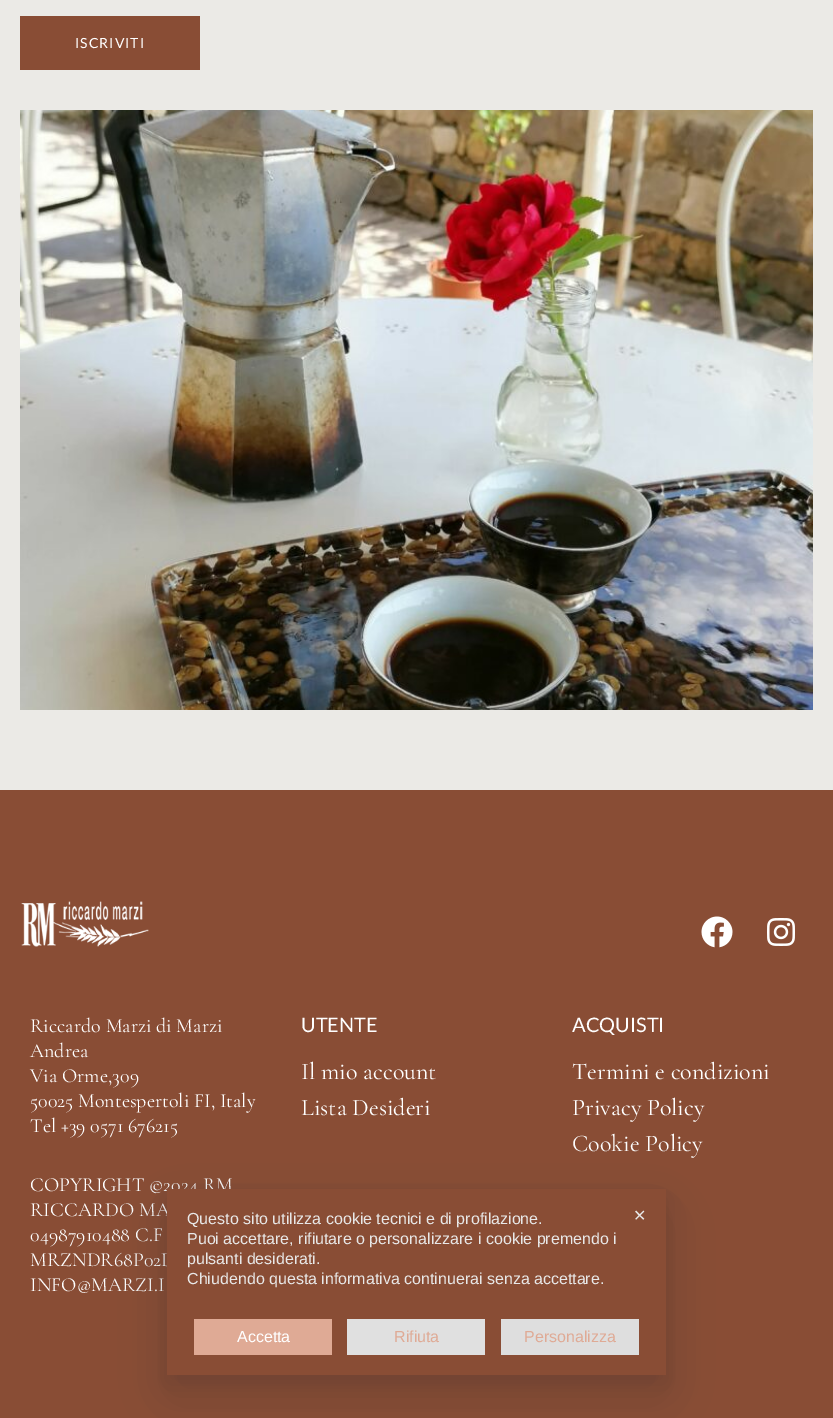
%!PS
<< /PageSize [833 1418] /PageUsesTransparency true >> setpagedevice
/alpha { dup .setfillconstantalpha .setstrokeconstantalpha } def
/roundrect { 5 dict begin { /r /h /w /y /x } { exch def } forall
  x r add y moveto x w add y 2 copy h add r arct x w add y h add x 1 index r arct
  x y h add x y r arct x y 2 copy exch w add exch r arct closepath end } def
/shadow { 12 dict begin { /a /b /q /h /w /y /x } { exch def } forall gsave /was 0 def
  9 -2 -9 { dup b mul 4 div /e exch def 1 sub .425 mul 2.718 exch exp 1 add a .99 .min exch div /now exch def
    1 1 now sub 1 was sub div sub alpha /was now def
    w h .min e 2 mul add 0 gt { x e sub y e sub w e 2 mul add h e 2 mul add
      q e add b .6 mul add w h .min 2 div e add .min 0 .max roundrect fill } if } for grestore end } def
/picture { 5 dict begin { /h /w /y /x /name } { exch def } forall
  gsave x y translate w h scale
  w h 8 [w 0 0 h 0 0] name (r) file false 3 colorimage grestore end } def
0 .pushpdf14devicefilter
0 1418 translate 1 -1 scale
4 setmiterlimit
0.922 0.918 0.902 setrgbcolor
0 0 833 1418 rectfill
0.537 0.302 0.208 setrgbcolor
20 16 180 54 rectfill
/Lato-Regular [14 0 0 -14 0 0] selectfont
1 setgray
75 48 moveto 1 0 (ISCRIVITI) ashow
(img1.rgb) 20 110 793 600 picture
0.537 0.302 0.208 setrgbcolor
0 790 833 628 rectfill
(img2.rgb) 21 901 128 46 picture
(img3.rgb) 701 916 32 32 picture
(img4.rgb) 767 918 28 28 picture
/CormorantGaramond-Regular [20 0 0 -20 0 0] selectfont
1 setgray
30 1032 moveto (Riccardo Marzi di Marzi) show
30 1057 moveto (Andrea) show
30 1082 moveto (Via Orme,309) show
30 1107 moveto (50025 Montespertoli FI, Italy) show
30 1132 moveto (Tel +39 0571 676215) show
30 1191 moveto (COPYRIGHT ©2024 RM) show
30 1216 moveto (RICCARDO MA) show
30 1241 moveto (04987910488 C.F) show
30 1266 moveto (MRZNDR68P02D) show
30 1291 moveto (INFO@MARZI.I) show
/Lato-Regular [20 0 0 -20 0 0] selectfont
301 1032 moveto (UTENTE) show
/CormorantGaramond-Regular [24 0 0 -24 0 0] selectfont
301 1079 moveto (Il mio account) show
301 1115 moveto (Lista Desideri) show
/Lato-Regular [20 0 0 -20 0 0] selectfont
572 1032 moveto (ACQUISTI) show
/CormorantGaramond-Regular [24 0 0 -24 0 0] selectfont
572 1079 moveto (Termini e condizioni) show
572 1115 moveto (Privacy Policy) show
572 1151 moveto (Cookie Policy) show
0.067 0.067 0.102 setrgbcolor
167 1213 499 186 0 40 0.1 shadow
167 1205 499 186 0 28 0.1 shadow
167 1197 499 186 0 12 0.1 shadow
0.537 0.302 0.208 setrgbcolor
167 1189 499 186 rectfill
/LiberationSans-Regular [16 0 0 -16 0 0] selectfont
0.91 setgray
187 1224 moveto (Questo sito utilizza cookie tecnici e di profilazione.) show
187 1244 moveto (Puoi accettare, rifiutare o personalizzare i cookie premendo i) show
187 1264 moveto (pulsanti desiderati.) show
187 1284 moveto (Chiudendo questa informativa continuerai senza accettare.) show
0.875 0.667 0.584 setrgbcolor
194 1319 138 36 rectfill
1 setgray
237 1342 moveto (Accetta) show
0.878 setgray
347 1319 138 36 rectfill
0.875 0.667 0.584 setrgbcolor
394 1342 moveto (Rifiuta) show
0.871 setgray
501 1319 138 36 rectfill
0.875 0.667 0.584 setrgbcolor
524 1342 moveto (Personalizza) show
/DejaVuSans-Regular [16 0 0 -16 0 0] selectfont
0.91 setgray
633 1221 moveto (✕) show
.poppdf14devicefilter showpage
